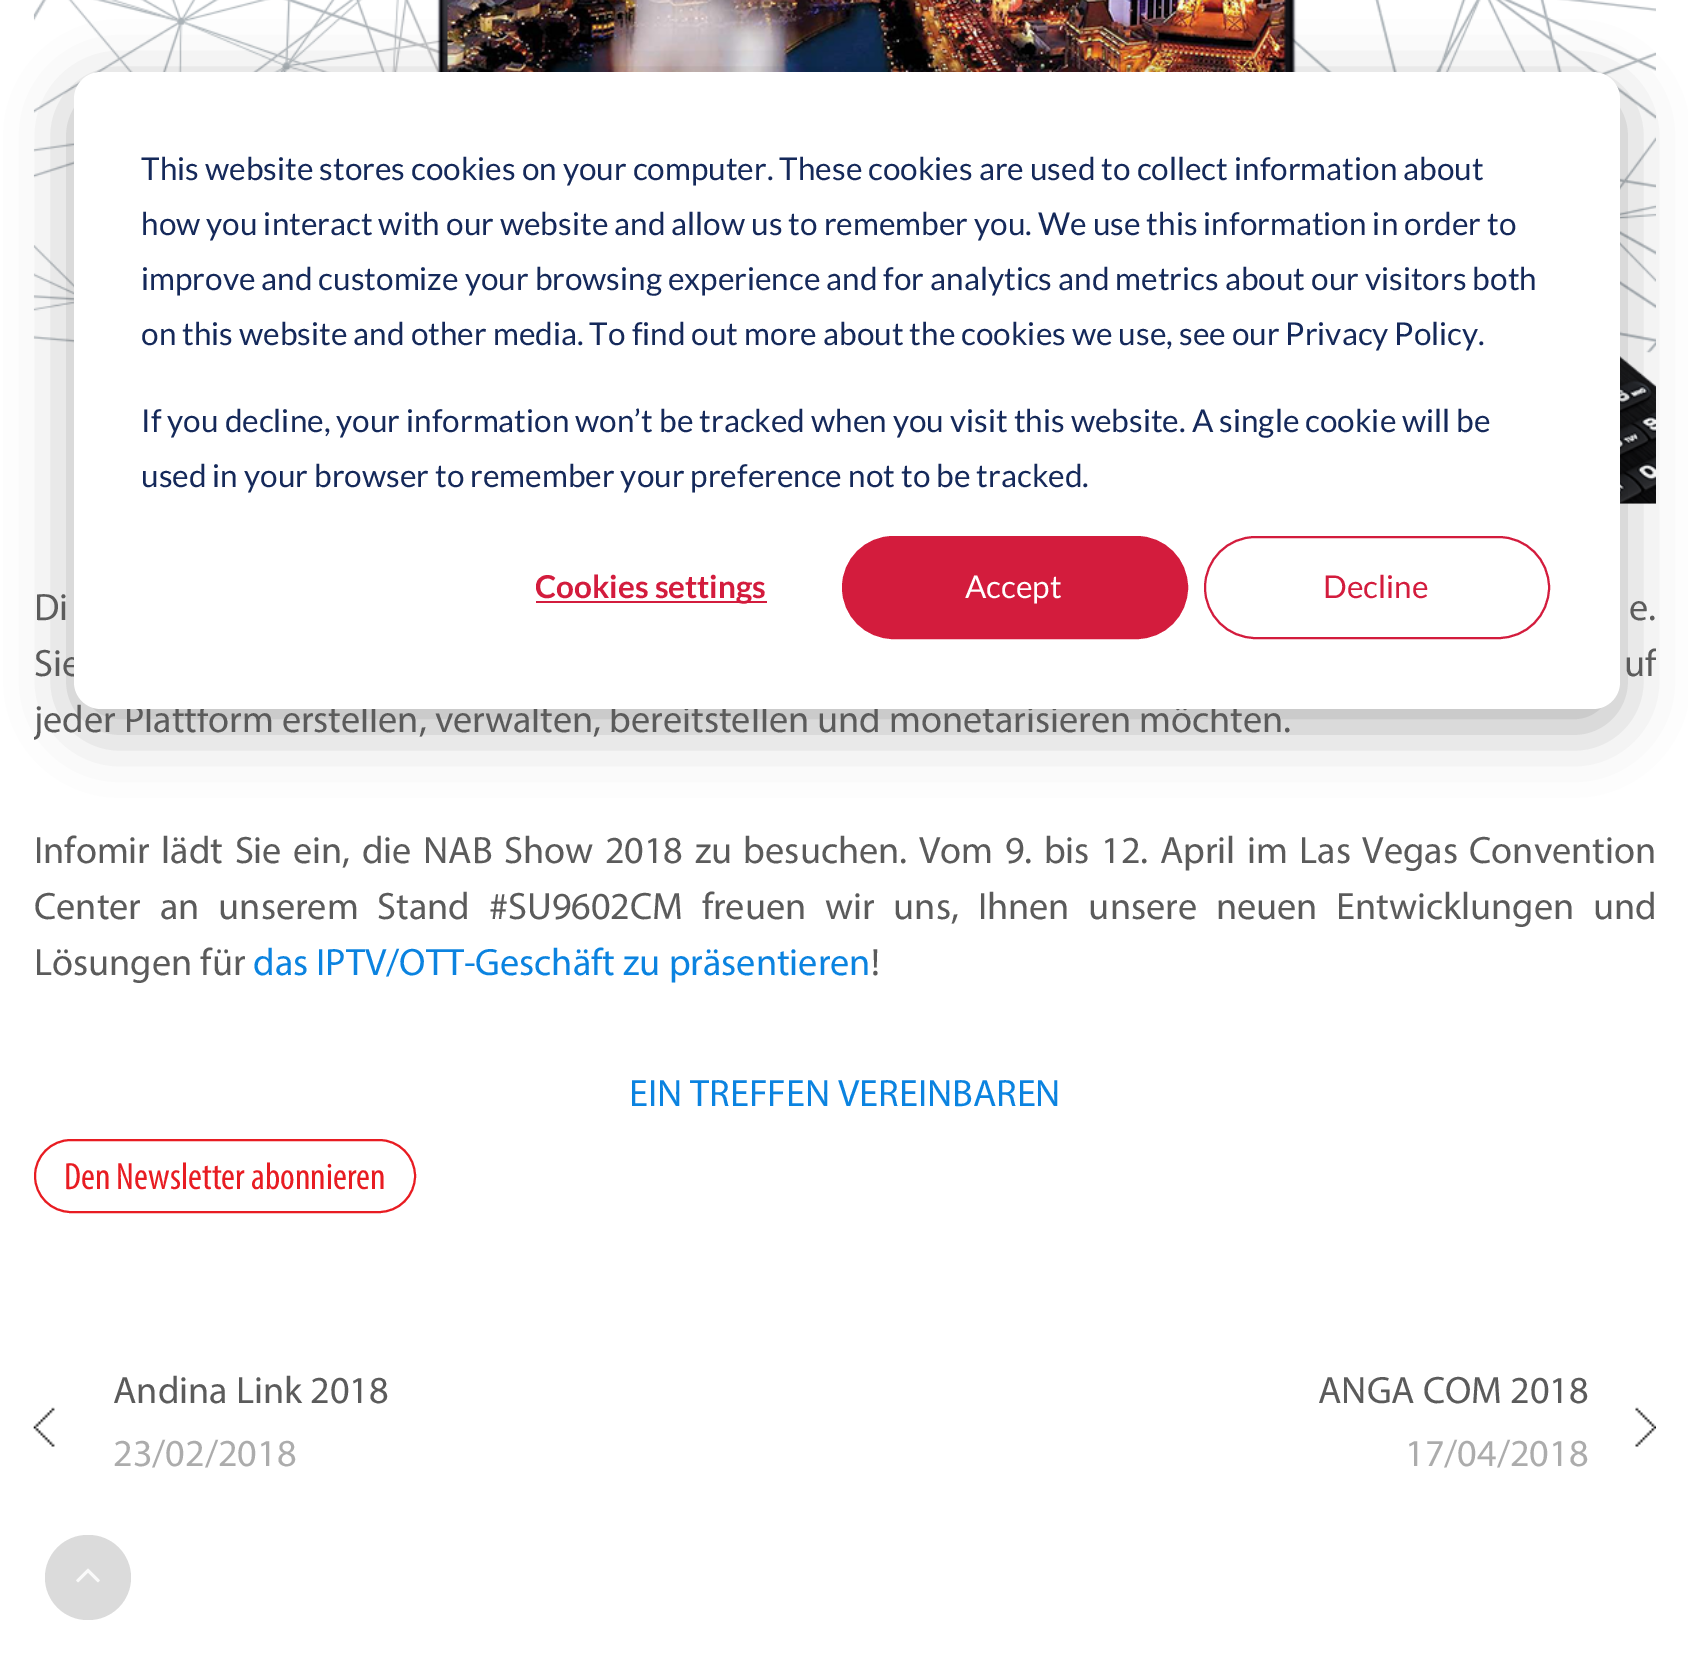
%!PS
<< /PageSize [1688 1664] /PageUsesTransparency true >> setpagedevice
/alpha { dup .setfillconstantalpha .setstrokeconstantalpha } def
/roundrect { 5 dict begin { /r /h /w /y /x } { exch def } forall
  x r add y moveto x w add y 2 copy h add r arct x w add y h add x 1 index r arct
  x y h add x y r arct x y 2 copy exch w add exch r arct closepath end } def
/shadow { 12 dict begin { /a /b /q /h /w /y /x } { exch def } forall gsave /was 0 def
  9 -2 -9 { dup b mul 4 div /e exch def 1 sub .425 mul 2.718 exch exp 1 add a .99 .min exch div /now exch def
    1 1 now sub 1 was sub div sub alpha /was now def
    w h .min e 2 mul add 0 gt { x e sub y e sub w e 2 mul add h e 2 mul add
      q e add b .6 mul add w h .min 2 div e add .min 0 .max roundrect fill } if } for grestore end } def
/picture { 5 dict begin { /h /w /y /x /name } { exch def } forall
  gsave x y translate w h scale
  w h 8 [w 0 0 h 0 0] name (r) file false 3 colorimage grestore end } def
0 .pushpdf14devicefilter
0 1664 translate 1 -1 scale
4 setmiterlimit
1 setgray
0 0 1688 1664 rectfill
(img1.rgb) 33 0 1623 504 picture
0 setgray
74 90 1546 637 27 31.5 0.28 shadow
/Myriad-Regular [38.25 0 0 -38.25 0 0] selectfont
0.357 setgray
34 676 moveto 2 0 32 (Sie) widthshow
gsave
34 578 1622 169 rectclip
34 732 moveto (jeder Plattform erstellen, verwalten, bereitstellen und monetarisieren möchten.) show
grestore
1 setgray
74 72 1546 637 27 roundrect fill
/Lato-Regular [31.5 0 0 -31.5 0 0] selectfont
0.082 0.161 0.353 setrgbcolor
141 180 moveto (This website stores cookies on your computer. These cookies are used to collect information about) show
141 235 moveto (how you interact with our website and allow us to remember you. We use this information in order to) show
141 290 moveto (improve and customize your browsing experience and for analytics and metrics about our visitors both) show
141 345 moveto (on this website and other media. To find out more about the cookies we use, see our Privacy Policy.) show
141 432 moveto (If you decline, your information won’t be tracked when you visit this website. A single cookie will be) show
141 487 moveto (used in your browser to remember your preference not to be tracked.) show
0.827 0.11 0.239 setrgbcolor
536 601 231 2 rectfill
/Lato-Bold [31.5 0 0 -31.5 0 0] selectfont
535 598 moveto (Cookies settings) show
843 537 344 101 50.5 roundrect gsave fill grestore
2 setlinewidth
stroke
/Lato-Regular [31.5 0 0 -31.5 0 0] selectfont
1 setgray
965 598 moveto (Accept) show
0.827 0.11 0.239 setrgbcolor
1205 537 344 101 50.5 roundrect stroke
1323 598 moveto (Decline) show
/Myriad-Regular [38.25 0 0 -38.25 0 0] selectfont
0.357 setgray
34 620 moveto 1 0 32 (Di) widthshow
1629 620 moveto 1 0 32 (e.) widthshow
gsave
34 578 1622 169 rectclip
1624 676 moveto 2 0 32 (uf) widthshow
grestore
34 863 moveto 3.4 0 32 (Infomir lädt Sie ein, die NAB Show 2018 zu besuchen. Vom 9. bis 12. April im Las Vegas Convention) widthshow
34 919 moveto 10.75 0 32 (Center an unserem Stand #SU9602CM freuen wir uns, Ihnen unsere neuen Entwicklungen und) widthshow
34 975 moveto (Lösungen für) show
0.043 0.514 0.878 setrgbcolor
253 975 moveto (das IPTV/OTT-Geschäft zu präsentieren) show
0.357 setgray
871 975 moveto (!) show
0.043 0.514 0.878 setrgbcolor
629 1106 moveto (EIN TREFFEN VEREINBAREN) show
0.91 0.11 0.133 setrgbcolor
35 1140 380 72 36 roundrect stroke
/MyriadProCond-Regular [38.25 0 0 -38.25 0 0] selectfont
64 1189 moveto (Den Newsletter abonnieren) show
(img2.rgb) 33 1407 22 40 picture
/Myriad-Regular [38.25 0 0 -38.25 0 0] selectfont
0.357 setgray
113 1403 moveto (Andina Link 2018) show
0.675 setgray
113 1466 moveto (23/02/2018) show
0.357 setgray
1318 1403 moveto (ANGA COM 2018) show
0.675 setgray
1405 1466 moveto (17/04/2018) show
(img3.rgb) 1635 1407 21 40 picture
0.859 setgray
45 1535 86 85 42.5 roundrect fill
(img4.rgb) 76 1568 24 15 picture
.poppdf14devicefilter showpage
